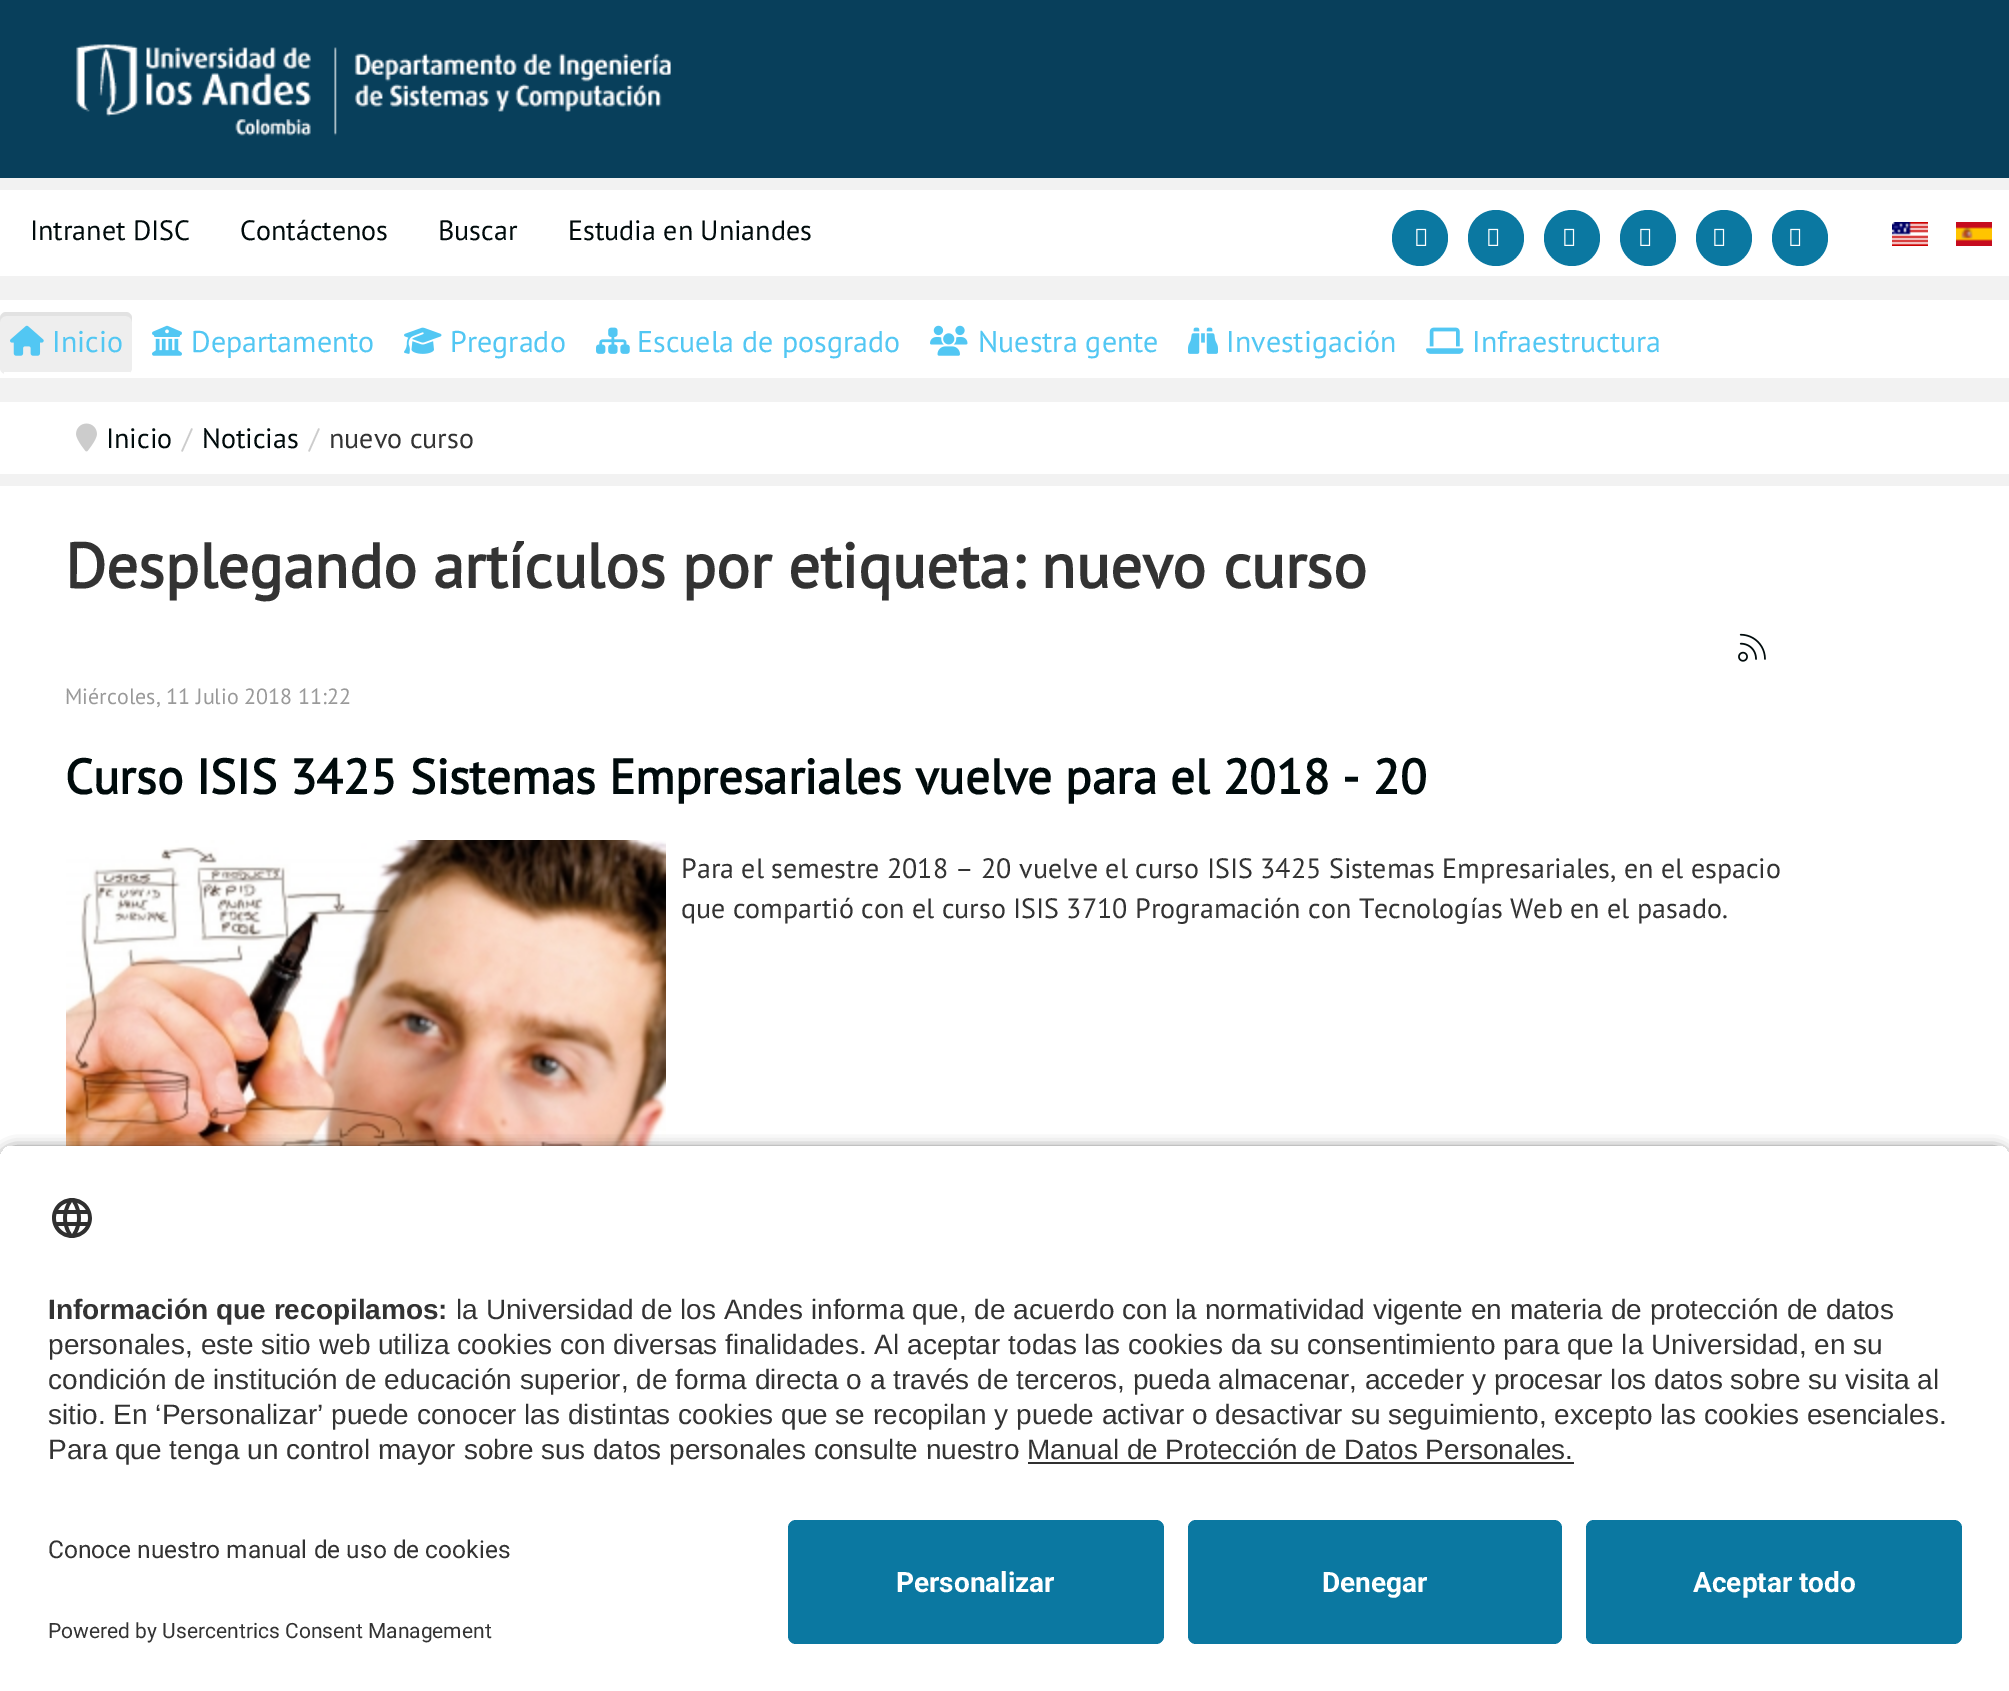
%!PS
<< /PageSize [2009 1691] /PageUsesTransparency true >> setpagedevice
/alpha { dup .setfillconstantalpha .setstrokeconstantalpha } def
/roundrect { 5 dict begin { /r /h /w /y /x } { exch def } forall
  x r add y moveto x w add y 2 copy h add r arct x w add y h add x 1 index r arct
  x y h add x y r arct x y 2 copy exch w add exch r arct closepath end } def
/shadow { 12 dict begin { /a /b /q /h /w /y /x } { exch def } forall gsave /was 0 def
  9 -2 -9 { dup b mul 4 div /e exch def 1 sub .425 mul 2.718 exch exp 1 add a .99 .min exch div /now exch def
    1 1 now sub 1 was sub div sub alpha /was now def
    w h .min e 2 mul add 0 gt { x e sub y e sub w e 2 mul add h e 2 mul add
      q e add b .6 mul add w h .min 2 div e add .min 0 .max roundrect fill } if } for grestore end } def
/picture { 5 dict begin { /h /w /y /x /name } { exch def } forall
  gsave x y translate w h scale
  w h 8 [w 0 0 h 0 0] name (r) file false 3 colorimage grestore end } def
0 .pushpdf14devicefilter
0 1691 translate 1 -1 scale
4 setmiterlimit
1 setgray
0 0 2009 1691 rectfill
(img1.rgb) 0 0 2009 178 picture
0.949 setgray
0 178 2009 12 rectfill
0 276 2009 24 rectfill
/PTSans-Regular [28 0 0 -28 0 0] selectfont
0 0.043 0.047 setrgbcolor
30 240 moveto (Intranet DISC) show
240 240 moveto (Contáctenos) show
438 240 moveto (Buscar) show
568 240 moveto (Estudia en Uniandes) show
0.043 0.471 0.631 setrgbcolor
newpath 1420 238 28 0 360 arc closepath fill
(img2.rgb) 1416 228 11 18 picture
newpath 1496 238 28 0 360 arc closepath fill
(img2.rgb) 1488 228 11 18 picture
newpath 1572 238 28 0 360 arc closepath fill
(img2.rgb) 1564 228 11 18 picture
newpath 1648 238 28 0 360 arc closepath fill
(img2.rgb) 1640 228 11 18 picture
newpath 1724 238 28 0 360 arc closepath fill
(img2.rgb) 1714 228 11 18 picture
newpath 1800 238 28 0 360 arc closepath fill
(img2.rgb) 1790 228 11 18 picture
(img3.rgb) 1892 222 36 24 picture
(img4.rgb) 1956 222 36 24 picture
0.949 setgray
0 378 2009 24 rectfill
0.933 setgray
0 312 132 62 6 roundrect fill
0.05 alpha
0 setgray
newpath 6 316 moveto 126 316 lineto 129 316 132 319 132 322 curveto 132 318 lineto 132 315 129 312 126 312 curveto 6 312 lineto 3 312 0 315 0 318 curveto 0 322 lineto 0 319 3 316 6 316 curveto closepath fill
1 alpha
1 setgray
4 372 126 2 rectfill
(img5.rgb) 10 325 34 31 picture
/PTSans-Regular [30 0 0 -30 0 0] selectfont
0.322 0.78 0.953 setrgbcolor
52 352 moveto (Inicio) show
(img6.rgb) 152 325 30 31 picture
191 352 moveto (Departamento) show
(img7.rgb) 404 327 38 27 picture
450 352 moveto (Pregrado) show
(img8.rgb) 596 327 34 27 picture
637 352 moveto (Escuela de posgrado) show
(img9.rgb) 930 325 38 31 picture
978 352 moveto (Nuestra gente) show
(img10.rgb) 1188 327 30 27 picture
1226 352 moveto (Investigación) show
(img11.rgb) 1426 327 38 27 picture
1472 352 moveto (Infraestructura) show
(img12.rgb) 76 423 21 29 picture
/PTSans-Regular [28 0 0 -28 0 0] selectfont
0 0.043 0.047 setrgbcolor
106 448 moveto (Inicio) show
0.8 setgray
182 448 moveto (/) show
0 0.043 0.047 setrgbcolor
202 448 moveto (Noticias) show
0.8 setgray
309 448 moveto (/) show
0.2 setgray
329 448 moveto (nuevo curso) show
0.949 setgray
0 474 2009 12 rectfill
/PTSans-Bold [63 0 0 -63 0 0] selectfont
0.2 setgray
65 588 moveto (Desplegando artículos por etiqueta: nuevo curso) show
(img13.rgb) 1738 633 28 29 picture
/PTSans-Regular [22 0 0 -22 0 0] selectfont
0.6 setgray
65 704 moveto (Miércoles, 11 Julio 2018 11:22) show
/PTSans-Bold [49 0 0 -49 0 0] selectfont
0 0.043 0.047 setrgbcolor
65 794 moveto (Curso ISIS 3425 Sistemas Empresariales vuelve para el 2018 - 20) show
(img14.rgb) 66 840 600 306 picture
/PTSans-Regular [28 0 0 -28 0 0] selectfont
0.2 setgray
681 878 moveto (Para el semestre 2018 – 20 vuelve el curso ISIS 3425 Sistemas Empresariales, en el espacio) show
681 918 moveto (que compartió con el curso ISIS 3710 Programación con Tecnologías Web en el pasado.) show
0 setgray
0 1150 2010 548 16 7 0.8 shadow
gsave
newpath 16 1144 moveto 1994 1144 lineto 2003 1144 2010 1151 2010 1160 curveto 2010 1504 lineto 0 1504 lineto 0 1160 lineto 0 1151 7 1144 16 1144 curveto closepath clip newpath
1 setgray
0 1146 2009 358 rectfill
grestore
(img15.rgb) 52 1198 40 40 picture
/LiberationSans-Bold [28 0 0 -28 0 0] selectfont
0.2 setgray
48 1319 moveto (Información que recopilamos:) show
/LiberationSans-Regular [28 0 0 -28 0 0] selectfont
456 1319 moveto (la Universidad de los Andes informa que, de acuerdo con la normatividad vigente en materia de protección de datos) show
48 1354 moveto (personales, este sitio web utiliza cookies con diversas finalidades. Al aceptar todas las cookies da su consentimiento para que la Universidad, en su) show
48 1389 moveto (condición de institución de educación superior, de forma directa o a través de terceros, pueda almacenar, acceder y procesar los datos sobre su visita al) show
48 1424 moveto (sitio. En ‘Personalizar’ puede conocer las distintas cookies que se recopilan y puede activar o desactivar su seguimiento, excepto las cookies esenciales.) show
48 1459 moveto (Para que tenga un control mayor sobre sus datos personales consulte nuestro Manual de Protección de Datos Personales.) show
0.188 setgray
1028 1462 546 2 rectfill
1 setgray
0 1504 2009 187 rectfill
/Roboto-Regular [24.5 0 0 -24.5 0 0] selectfont
0.2 setgray
48 1558 moveto (Conoce nuestro manual de uso de cookies) show
/Roboto-Regular [21 0 0 -21 0 0] selectfont
48 1638 moveto (Powered by Usercentrics Consent Management) show
0.043 0.471 0.631 setrgbcolor
788 1520 376 124 8 roundrect fill
/Roboto-Bold [28 0 0 -28 0 0] selectfont
1 setgray
896 1592 moveto (Personalizar) show
0.043 0.471 0.631 setrgbcolor
1188 1520 374 124 8 roundrect fill
1 setgray
1322 1592 moveto (Denegar) show
0.043 0.471 0.631 setrgbcolor
1586 1520 376 124 8 roundrect fill
1 setgray
1693 1592 moveto (Aceptar todo) show
.poppdf14devicefilter showpage
